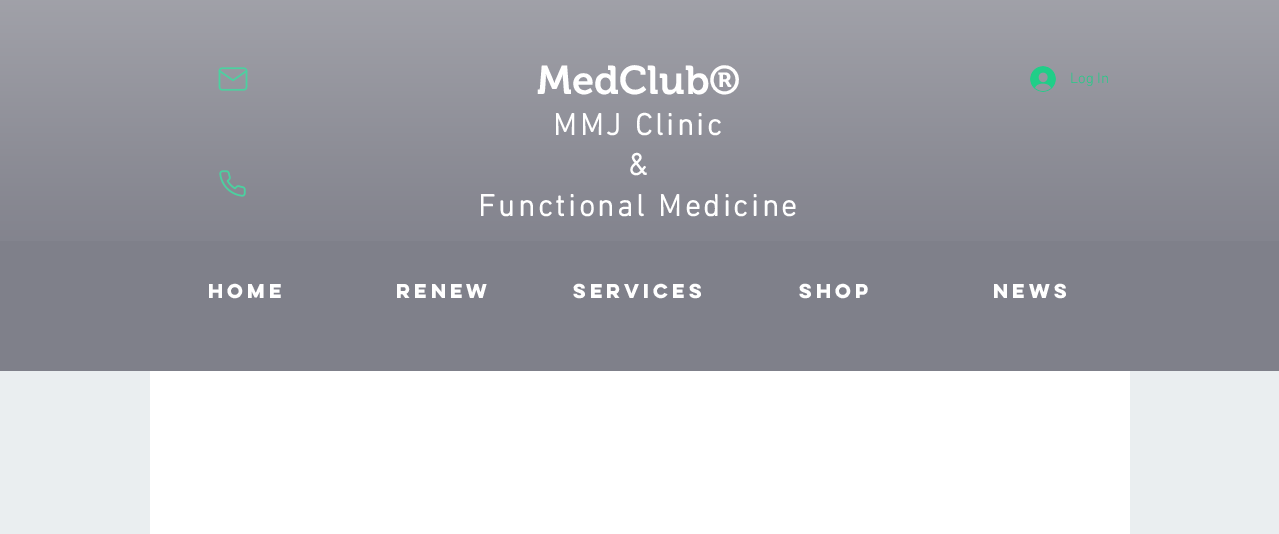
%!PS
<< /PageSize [1279 534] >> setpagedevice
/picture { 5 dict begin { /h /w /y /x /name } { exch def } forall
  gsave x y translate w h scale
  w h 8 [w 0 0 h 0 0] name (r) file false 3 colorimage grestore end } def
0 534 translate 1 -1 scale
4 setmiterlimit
0.918 0.933 0.941 setrgbcolor
0 0 1279 534 rectfill
0.498 0.502 0.541 setrgbcolor
0 0 1279 371 rectfill
(img1.rgb) 0 0 1279 241 picture
(img2.rgb) 218 67 30 24 picture
/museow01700-SemiBold [40 0 0 -40 0 0] selectfont
1 setgray
537 94 moveto (MedClub®) show
/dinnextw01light-Bold [31 0 0 -31 0 0] selectfont
553 135 moveto 3.1 0 (MMJ Clinic) ashow
628 175 moveto 3.1 0 (&) ashow
478 216 moveto 3.1 0 (Functional Medicine) ashow
(img3.rgb) 1030 66 26 26 picture
/dinnextw01light-Light [15 0 0 -15 0 0] selectfont
0.125 0.808 0.533 setrgbcolor
1070 83 moveto (Log In) show
(img4.rgb) 219 170 27 27 picture
/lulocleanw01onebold-Bold [18 0 0 -18 0 0] selectfont
1 setgray
208 298 moveto (HOME) show
396 298 moveto (RENEW) show
573 298 moveto (SERVICES) show
799 298 moveto (SHOP) show
993 298 moveto (NEWS) show
150 371 980 163 rectfill
showpage
